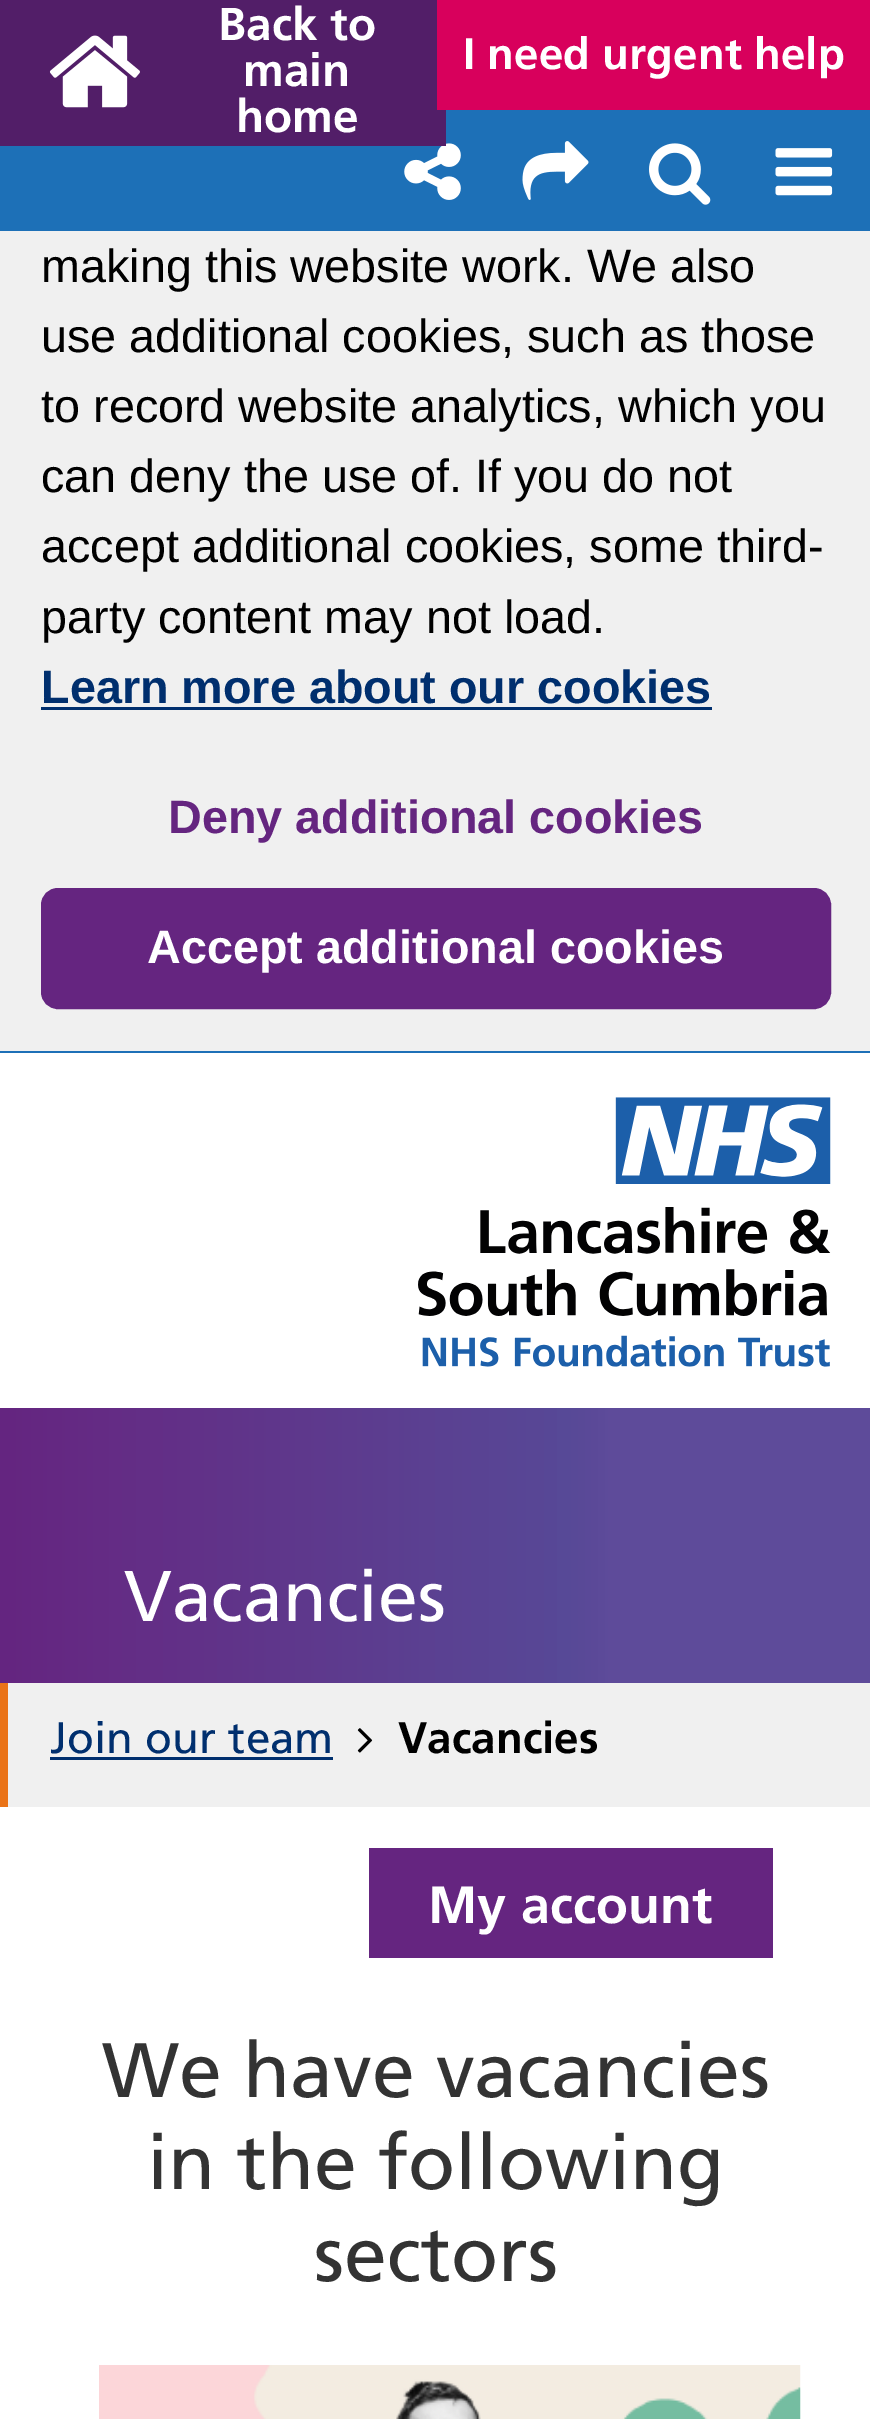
%!PS
<< /PageSize [870 2419] >> setpagedevice
/roundrect { 5 dict begin { /r /h /w /y /x } { exch def } forall
  x r add y moveto x w add y 2 copy h add r arct x w add y h add x 1 index r arct
  x y h add x y r arct x y 2 copy exch w add exch r arct closepath end } def
/picture { 5 dict begin { /h /w /y /x /name } { exch def } forall
  gsave x y translate w h scale
  w h 8 [w 0 0 h 0 0] name (r) file false 3 colorimage grestore end } def
0 2419 translate 1 -1 scale
4 setmiterlimit
0.941 setgray
0 0 870 2419 rectfill
1 setgray
0 1053 870 1366 rectfill
0.114 0.439 0.718 setrgbcolor
0 110 870 121 rectfill
(img2.rgb) 404 143 57 57 picture
0.322 0.118 0.408 setrgbcolor
0 0 446 146 rectfill
(img1.rgb) 49 35 91 73 picture
/Frutiger-Bold [46 0 0 -46 0 0] selectfont
1 setgray
218 40 moveto (Back to) show
243 86 moveto (main) show
236 132 moveto (home) show
0.847 0 0.361 setrgbcolor
437 0 433 110 rectfill
/Frutiger-Bold [44 0 0 -44 0 0] selectfont
1 setgray
463 69 moveto (I need urgent help) show
(img3.rgb) 522 141 67 59 picture
(img4.rgb) 649 143 62 62 picture
(img5.rgb) 775 148 58 48 picture
(img6.rgb) 418 1097 413 270 picture
gsave newpath 0 1408 moveto 870 1408 lineto 870 1683 lineto 0 1683 lineto closepath clip newpath
<< /ShadingType 2 /ColorSpace /DeviceRGB /Coords [0 1546 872 1546] /Extend [true true] /Function << /FunctionType 3 /Domain [0 1] /Functions [<< /FunctionType 2 /Domain [0 1] /C0 [0.396 0.145 0.502] /C1 [0.392 0.173 0.522] /N 1 >> << /FunctionType 2 /Domain [0 1] /C0 [0.392 0.173 0.522] /C1 [0.341 0.286 0.592] /N 1 >> << /FunctionType 2 /Domain [0 1] /C0 [0.341 0.286 0.592] /C1 [0.369 0.294 0.604] /N 1 >> << /FunctionType 2 /Domain [0 1] /C0 [0.369 0.294 0.604] /C1 [0.369 0.294 0.604] /N 1 >>] /Bounds [0.13 0.65 0.7] /Encode [0 1 0 1 0 1 0 1] >> >> shfill grestore
/Frutiger-Regular [71.5 0 0 -71.5 0 0] selectfont
124 1621 moveto (Vacancies) show
0.941 setgray
8 1683 862 124 rectfill
0.918 0.451 0.09 setrgbcolor
0 1683 8 124 rectfill
/Frutiger-Regular [44 0 0 -44 0 0] selectfont
0 0.184 0.431 setrgbcolor
50 1753 moveto (Join our team) show
50 1757 283 3 rectfill
(img7.rgb) 357 1728 16 25 picture
/Frutiger-Bold [44 0 0 -44 0 0] selectfont
0 setgray
398 1753 moveto (Vacancies) show
0.396 0.145 0.502 setrgbcolor
369 1848 404 110 rectfill
/Frutiger-Bold [52.25 0 0 -52.25 0 0] selectfont
1 setgray
428 1923 moveto (My account) show
/Frutiger-Regular [77 0 0 -77 0 0] selectfont
0.2 setgray
102 2097 moveto (We have vacancies) show
147 2189 moveto (in the following) show
314 2281 moveto (sectors) show
(img8.rgb) 99 2365 702 54 picture
0.114 0.439 0.718 setrgbcolor
0 1051 870 2 rectfill
/LiberationSans-Regular [46.75 0 0 -46.75 0 0] selectfont
0 setgray
41 282 moveto (making this website work. We also) show
41 352 moveto (use additional cookies, such as those) show
41 422 moveto (to record website analytics, which you) show
41 492 moveto (can deny the use of. If you do not) show
41 562 moveto (accept additional cookies, some third-) show
41 633 moveto (party content may not load.) show
/LiberationSans-Bold [46.75 0 0 -46.75 0 0] selectfont
0 0.184 0.431 setrgbcolor
41 703 moveto (Learn more about our cookies) show
41 707 671 3 rectfill
0.396 0.145 0.502 setrgbcolor
168 833 moveto (Deny additional cookies) show
44 891 784 115 14 roundrect gsave fill grestore
6 setlinewidth
stroke
1 setgray
147 963 moveto (Accept additional cookies) show
showpage
